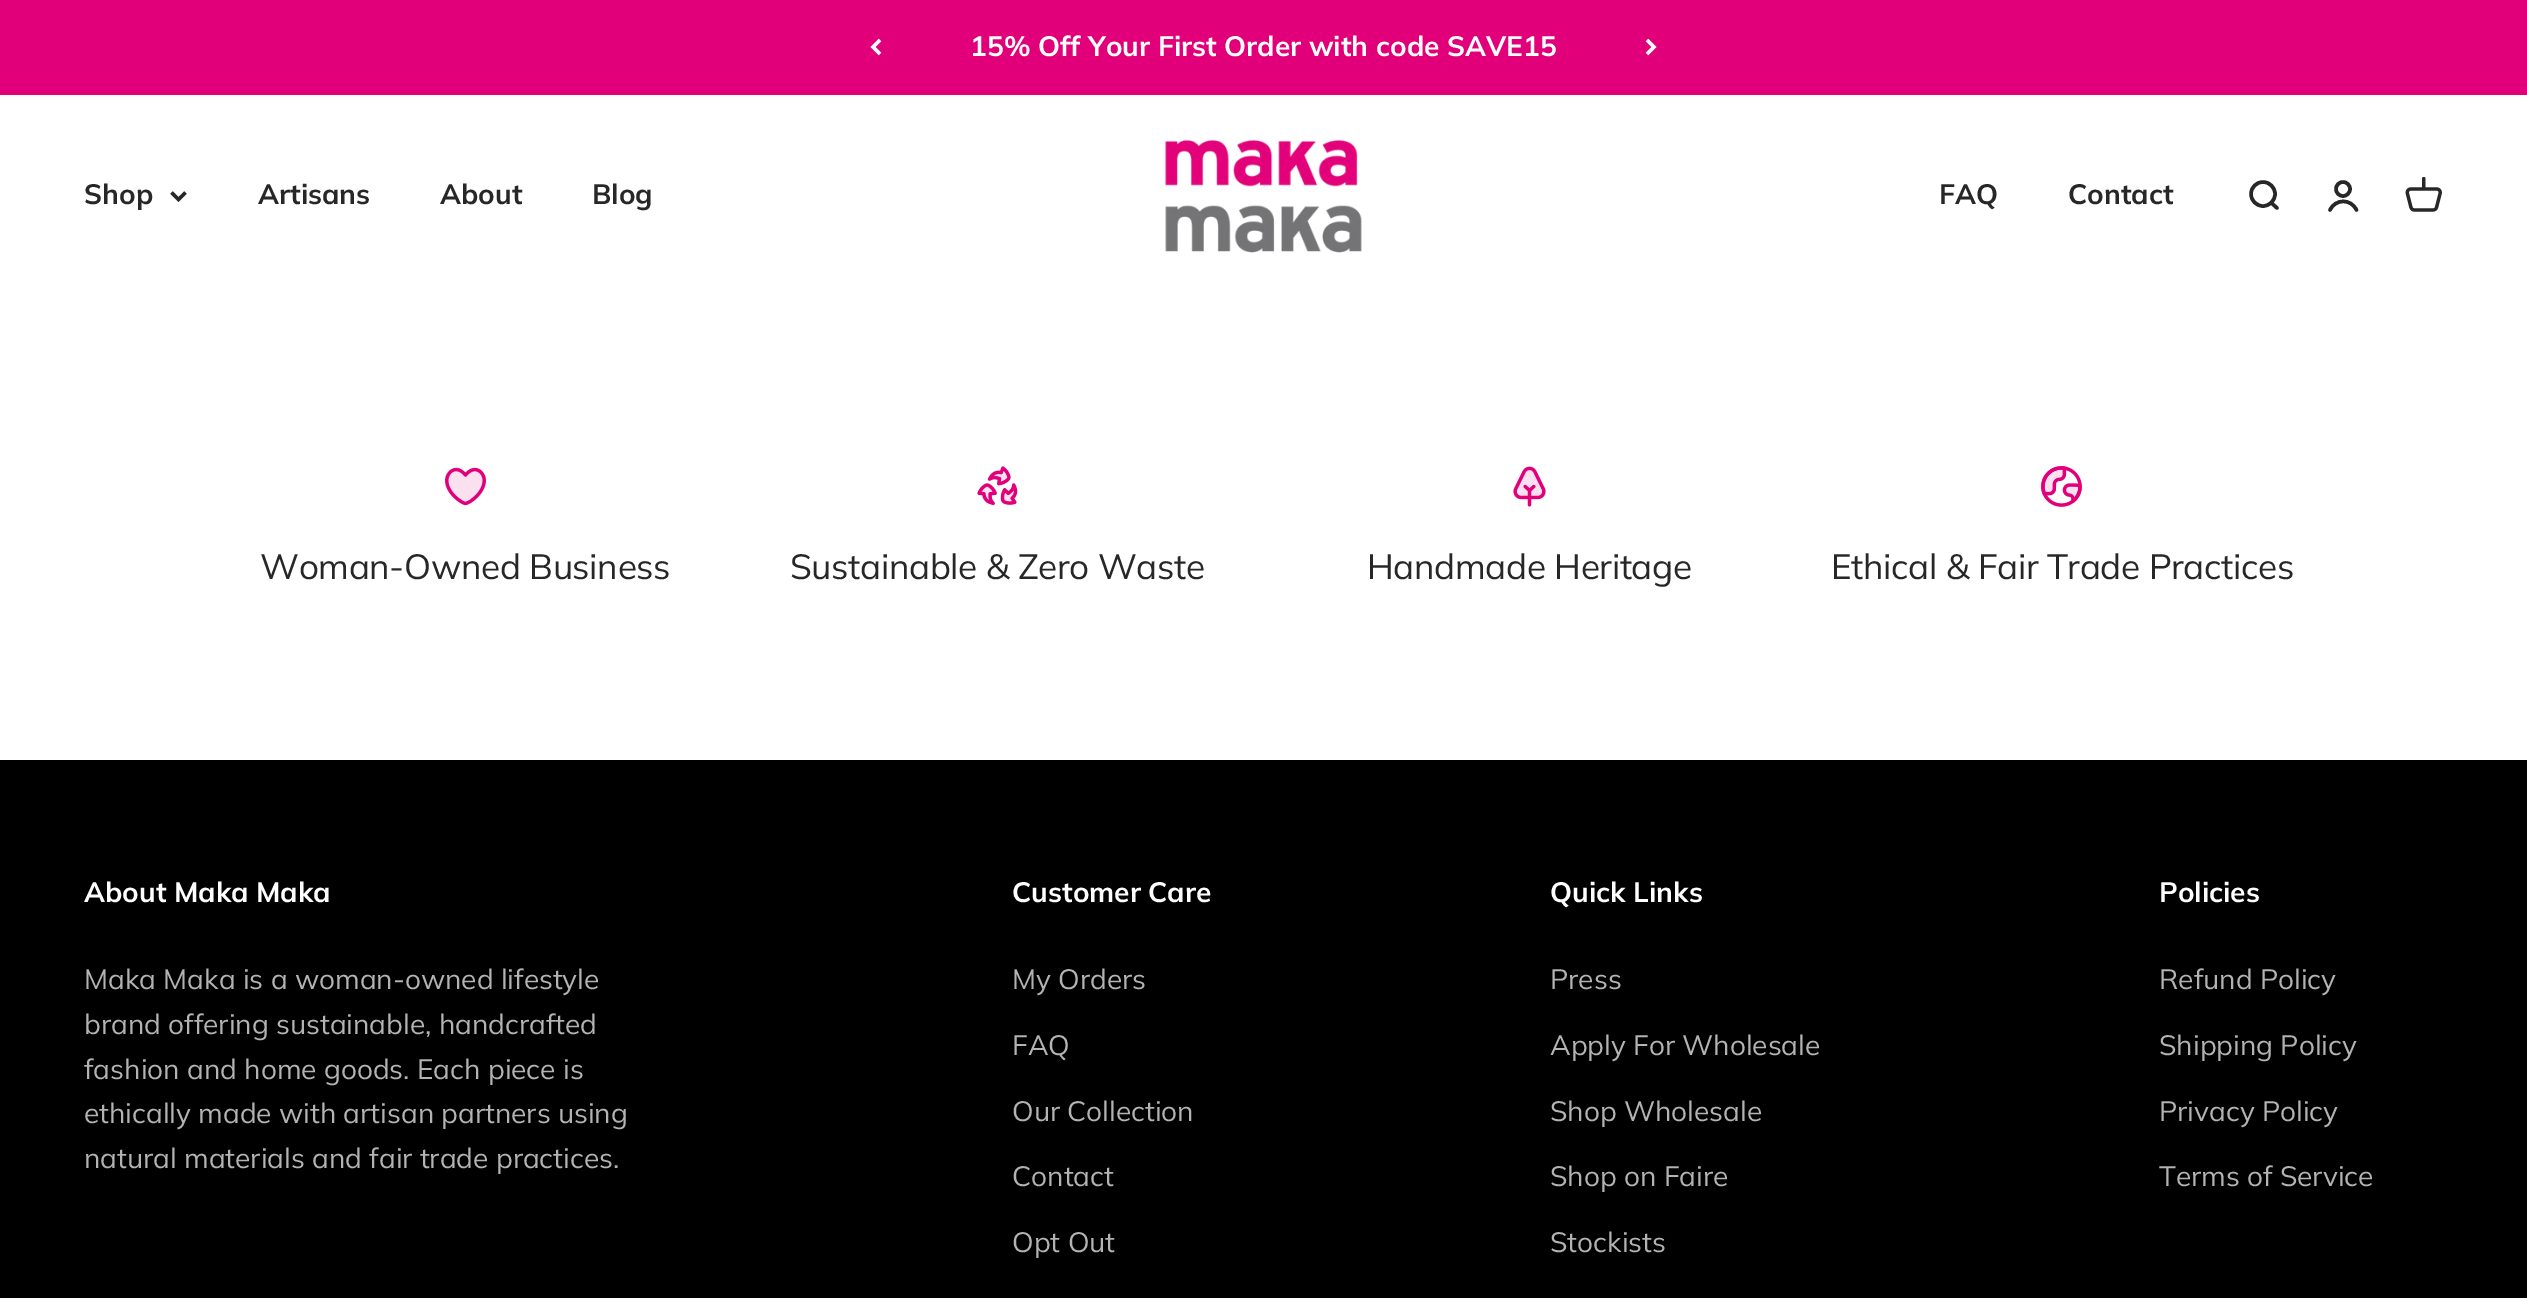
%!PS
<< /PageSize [2527 1298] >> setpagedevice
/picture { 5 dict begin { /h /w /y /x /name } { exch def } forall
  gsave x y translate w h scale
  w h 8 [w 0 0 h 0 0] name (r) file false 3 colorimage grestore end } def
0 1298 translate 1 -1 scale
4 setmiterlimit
1 setgray
0 0 2527 1298 rectfill
0.882 0 0.478 setrgbcolor
0 0 2527 95 rectfill
1 setgray
3.5 setlinewidth
newpath 880 40 moveto 873 47 lineto 880 54 lineto stroke
/Muli-Bold [28 0 0 -28 0 0] selectfont
970 56 moveto (15% Off Your First Order with code SAVE15) show
newpath 1647 54 moveto 1654 47 lineto 1647 40 lineto stroke
0.153 setgray
84 204 moveto (Shop) show
newpath 171.5 192.5 moveto 178.5 199.5 lineto 185.5 192.5 lineto stroke
258 204 moveto (Artisans) show
440 204 moveto (About) show
592 204 moveto (Blog) show
(img1.rgb) 1164 140 198 113 picture
1939 204 moveto (FAQ) show
2068 204 moveto (Contact) show
newpath 2263 194 12 0 360 arc closepath stroke
1 setlinecap
1 setlinejoin
newpath 2271.5 203 moveto 2277 208 lineto stroke
0 setlinecap
0 setlinejoin
newpath 2343 189 7 0 360 arc closepath stroke
1 setlinecap
newpath 2330 210 moveto 2335.5 198.5 2351 198.5 2356.5 210 curveto stroke
(img2.rgb) 2405 177 37 35 picture
(img3.rgb) 445 467 41 39 picture
/Muli-Regular [35 0 0 -35 0 0] selectfont
260 579 moveto -0.35 0 (Woman-Owned Business) ashow
(img4.rgb) 977 466 41 39 picture
790 579 moveto -0.35 0 (Sustainable & Zero Waste) ashow
(img5.rgb) 1513 466 33 41 picture
1367 579 moveto -0.35 0 (Handmade Heritage) ashow
(img6.rgb) 2041 466 41 41 picture
1831 579 moveto -0.35 0 (Ethical & Fair Trade Practices) ashow
0 setgray
0 760 2527 538 rectfill
/Muli-Bold [28 0 0 -28 0 0] selectfont
1 setgray
84 902 moveto (About Maka Maka) show
/Muli-Regular [28 0 0 -28 0 0] selectfont
0.702 setgray
84 989 moveto (Maka Maka is a woman-owned lifestyle) show
84 1034 moveto (brand offering sustainable, handcrafted) show
84 1079 moveto (fashion and home goods. Each piece is) show
84 1123 moveto (ethically made with artisan partners using) show
84 1168 moveto (natural materials and fair trade practices.) show
/Muli-Bold [28 0 0 -28 0 0] selectfont
1 setgray
1012 902 moveto (Customer Care) show
/Muli-Regular [28 0 0 -28 0 0] selectfont
0.702 setgray
1012 989 moveto (My Orders) show
1012 1055 moveto (FAQ) show
1012 1121 moveto (Our Collection) show
1012 1186 moveto (Contact) show
1012 1252 moveto (Opt Out) show
/Muli-Bold [28 0 0 -28 0 0] selectfont
1 setgray
1550 902 moveto (Quick Links) show
/Muli-Regular [28 0 0 -28 0 0] selectfont
0.702 setgray
1550 989 moveto (Press) show
1550 1055 moveto (Apply For Wholesale) show
1550 1121 moveto (Shop Wholesale) show
1550 1186 moveto (Shop on Faire) show
1550 1252 moveto (Stockists) show
/Muli-Bold [28 0 0 -28 0 0] selectfont
1 setgray
2159 902 moveto (Policies) show
/Muli-Regular [28 0 0 -28 0 0] selectfont
0.702 setgray
2159 989 moveto (Refund Policy) show
2159 1055 moveto (Shipping Policy) show
2159 1121 moveto (Privacy Policy) show
2159 1186 moveto (Terms of Service) show
showpage
